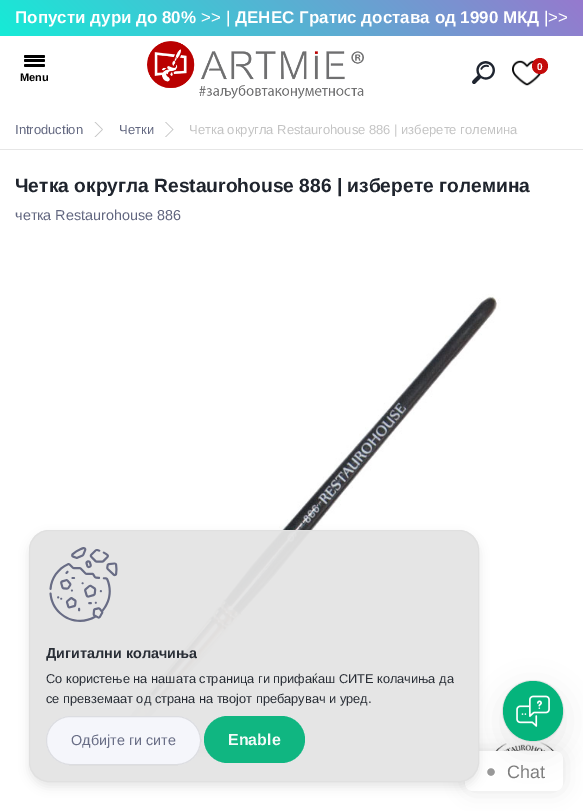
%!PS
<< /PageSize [583 811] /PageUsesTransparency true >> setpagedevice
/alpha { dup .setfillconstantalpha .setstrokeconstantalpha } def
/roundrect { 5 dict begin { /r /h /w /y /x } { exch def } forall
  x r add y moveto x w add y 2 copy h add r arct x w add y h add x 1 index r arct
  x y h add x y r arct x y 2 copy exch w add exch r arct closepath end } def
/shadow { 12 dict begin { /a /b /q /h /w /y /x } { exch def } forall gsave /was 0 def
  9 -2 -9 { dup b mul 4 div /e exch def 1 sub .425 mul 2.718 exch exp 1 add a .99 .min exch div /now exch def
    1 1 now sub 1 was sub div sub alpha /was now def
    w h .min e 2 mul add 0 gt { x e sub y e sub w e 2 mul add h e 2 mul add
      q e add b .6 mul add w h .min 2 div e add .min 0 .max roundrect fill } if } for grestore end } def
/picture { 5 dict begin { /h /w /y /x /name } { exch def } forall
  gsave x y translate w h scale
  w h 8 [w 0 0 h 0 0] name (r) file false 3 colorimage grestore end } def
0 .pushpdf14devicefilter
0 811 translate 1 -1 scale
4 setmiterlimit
1 setgray
0 0 583 811 rectfill
gsave newpath 0 0 moveto 583 0 lineto 583 36 lineto 0 36 lineto closepath clip newpath
<< /ShadingType 2 /ColorSpace /DeviceRGB /Coords [547 691 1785 -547] /Extend [true true] /Function << /FunctionType 3 /Domain [0 1] /Functions [<< /FunctionType 2 /Domain [0 1] /C0 [0 1 0.851] /C1 [1 0.102 0.78] /N 1 >> << /FunctionType 2 /Domain [0 1] /C0 [1 0.102 0.78] /C1 [0 1 0.851] /N 1 >>] /Bounds [0.5] /Encode [0 1 0 1] >> >> shfill grestore
/LiberationSans-Bold [17 0 0 -17 0 0] selectfont
15 23 moveto (Попусти дури до 80%) show
/LiberationSans-Regular [17 0 0 -17 0 0] selectfont
201 23 moveto (>> |) show
/LiberationSans-Bold [17 0 0 -17 0 0] selectfont
235 23 moveto (ДЕНЕС Гратис достава од 1990 МКД) show
/LiberationSans-Regular [17 0 0 -17 0 0] selectfont
544 23 moveto (|>>) show
0 setgray
24 55 21 3 1.5 roundrect fill
24 59 21 3 1.5 roundrect fill
24 64 21 3 1.5 roundrect fill
/LiberationSans-Bold [11 0 0 -11 0 0] selectfont
20 81 moveto (Menu) show
(img1.rgb) 147 41 217 58 picture
(img2.rgb) 472 61 23 23 picture
(img3.rgb) 512 60 30 26 picture
0.769 0.043 0.043 setrgbcolor
newpath 540 66 8 0 360 arc closepath fill
/LiberationSans-Bold [10 0 0 -10 0 0] selectfont
1 setgray
537 70 moveto (0) show
0.902 setgray
0 149 583 1 rectfill
/LiberationSans-Regular [13 0 0 -13 0 0] selectfont
0.384 0.404 0.502 setrgbcolor
15 134 moveto (Introduction) show
0.765 setgray
newpath 94.5 122 moveto 95.5 122 lineto 103 129.5 lineto 102 129.5 lineto closepath fill
newpath 102 129.5 moveto 103 129.5 lineto 95.5 137 lineto 94.5 137 lineto closepath fill
0.384 0.404 0.502 setrgbcolor
119 134 moveto (Четки) show
0.765 setgray
newpath 165 122 moveto 166 122 lineto 173.5 129.5 lineto 172.5 129.5 lineto closepath fill
0.3 alpha
0.216 setgray
newpath 172.5 129.5 moveto 173.5 129.5 lineto 166 137 lineto 165 137 lineto closepath fill
1 alpha
0.765 setgray
189 134 moveto (Четка округла Restaurohouse 886 | изберете големина) show
/LiberationSans-Bold [19.2 0 0 -19.2 0 0] selectfont
0.122 0.141 0.176 setrgbcolor
15 192 moveto (Четка округла Restaurohouse 886 | изберете големина) show
/LiberationSans-Regular [14.4 0 0 -14.4 0 0] selectfont
0.384 0.404 0.502 setrgbcolor
15 220 moveto (четка Restaurohouse 886) show
(img4.rgb) 97 294 463 490 picture
0 setgray
465 751 98 40 8 10 0.1 shadow
1 setgray
465 751 98 40 8 roundrect fill
0.6 setgray
newpath 491 772 6 0 360 arc closepath gsave fill grestore
1 setgray
4 setlinewidth
stroke
/LiberationSans-Regular [18 0 0 -18 0 0] selectfont
0.49 setgray
507 778 moveto (Chat) show
gsave
newpath 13 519 moveto 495 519 lineto 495 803 lineto 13 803 lineto closepath 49 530 moveto 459 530 lineto 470 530 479 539 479 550 curveto 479 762 lineto 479 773 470 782 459 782 curveto 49 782 lineto 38 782 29 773 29 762 curveto 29 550 lineto 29 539 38 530 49 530 curveto closepath eoclip newpath
0 setgray
29 535 450 252 20 5 0.1 shadow
grestore
0.2 alpha
0.588 setgray
1 setlinewidth
newpath 533 711 30.5 0 360 arc closepath stroke
1 alpha
503 691 60 60 30 15 0.2 shadow
0.95 alpha
0.894 setgray
29 530 450 252 20 roundrect fill
0.878 setgray
29.5 530.5 449 251 19.5 roundrect stroke
1 alpha
(img5.rgb) 49 547 69 75 picture
/LiberationSans-Bold [14.4 0 0 -14.4 0 0] selectfont
0.161 0.18 0.212 setrgbcolor
46 658 moveto (Дигитални колачиња) show
/LiberationSans-Regular [12.8 0 0 -12.8 0 0] selectfont
46 683 moveto (Со користење на нашата страница ги прифаќаш СИТЕ колачиња да) show
46 703 moveto (се превземаат од страна на твојот пребарувач и уред.) show
0.95 alpha
0.965 0.969 0.988 setrgbcolor
46 716 155 49 24.5 roundrect fill
0.1 alpha
0 setgray
46.5 716.5 154 48 24 roundrect stroke
/LiberationSans-Regular [14.4 0 0 -14.4 0 0] selectfont
1 alpha
0.412 0.431 0.525 setrgbcolor
71 745 moveto (Одбијте ги сите) show
0.063 0.714 0.506 setrgbcolor
204 716 101 47 23.5 roundrect fill
/LiberationSans-Bold [16 0 0 -16 0 0] selectfont
0.953 0.984 0.976 setrgbcolor
228 745 moveto (Enable) show
0.02 0.706 0.486 setrgbcolor
newpath 533 711 30 0 360 arc closepath fill
(img6.rgb) 516 695 34 32 picture
.poppdf14devicefilter showpage
